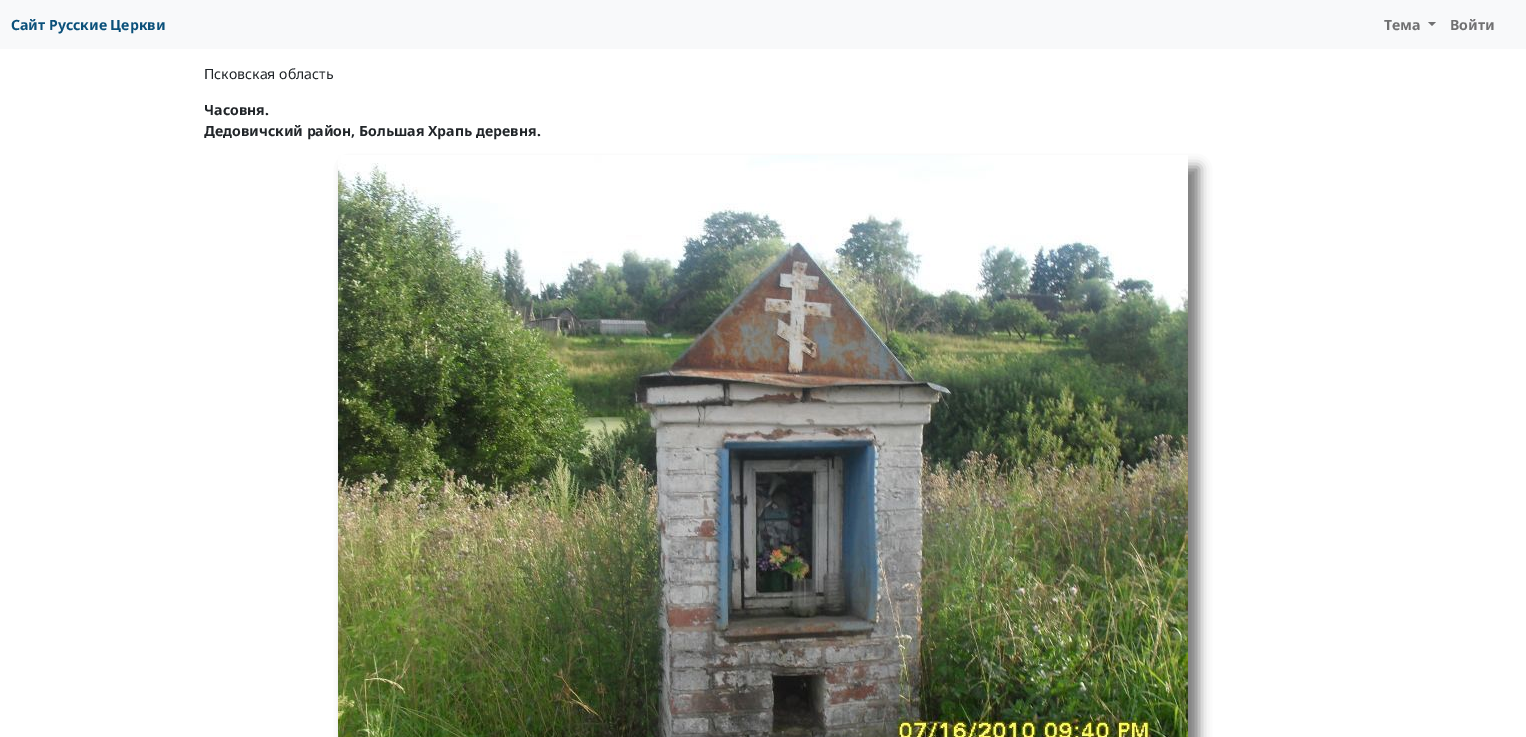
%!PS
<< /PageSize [1526 737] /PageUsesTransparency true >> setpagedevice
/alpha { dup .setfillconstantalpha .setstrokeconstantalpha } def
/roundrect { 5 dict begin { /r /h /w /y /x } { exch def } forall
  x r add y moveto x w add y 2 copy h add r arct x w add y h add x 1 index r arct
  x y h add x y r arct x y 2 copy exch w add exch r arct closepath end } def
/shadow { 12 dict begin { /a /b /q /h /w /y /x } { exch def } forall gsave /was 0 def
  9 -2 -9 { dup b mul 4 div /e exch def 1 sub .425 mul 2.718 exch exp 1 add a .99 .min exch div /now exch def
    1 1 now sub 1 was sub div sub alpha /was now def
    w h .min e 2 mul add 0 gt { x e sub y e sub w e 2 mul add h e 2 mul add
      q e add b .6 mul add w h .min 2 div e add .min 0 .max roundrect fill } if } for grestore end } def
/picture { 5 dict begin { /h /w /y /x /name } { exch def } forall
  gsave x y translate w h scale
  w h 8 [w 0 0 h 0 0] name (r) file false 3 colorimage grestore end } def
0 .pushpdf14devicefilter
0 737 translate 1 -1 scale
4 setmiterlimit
1 setgray
0 0 1526 737 rectfill
0.973 0.976 0.98 setrgbcolor
0 0 1526 49 rectfill
/NotoSans-Bold [14.1 0 0 -14.1 0 0] selectfont
0.039 0.314 0.478 setrgbcolor
11 30 moveto (Сайт Русские Церкви) show
0.439 0.439 0.443 setrgbcolor
1384 30 moveto (Тема) show
newpath 1428 22 moveto 1436 22 lineto 1432 26 lineto closepath fill
1450 30 moveto (Войти) show
/NotoSans-Regular [14.1 0 0 -14.1 0 0] selectfont
0.129 0.145 0.161 setrgbcolor
204 79 moveto (Псковская область) show
/NotoSans-Bold [14.1 0 0 -14.1 0 0] selectfont
204 115 moveto (Часовня.) show
204 136 moveto (Дедовичский район, Большая Храпь деревня.) show
0 setgray
347 167 852 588 0 6 0.51 shadow
(img1.rgb) 338 155 850 582 picture
.poppdf14devicefilter showpage
